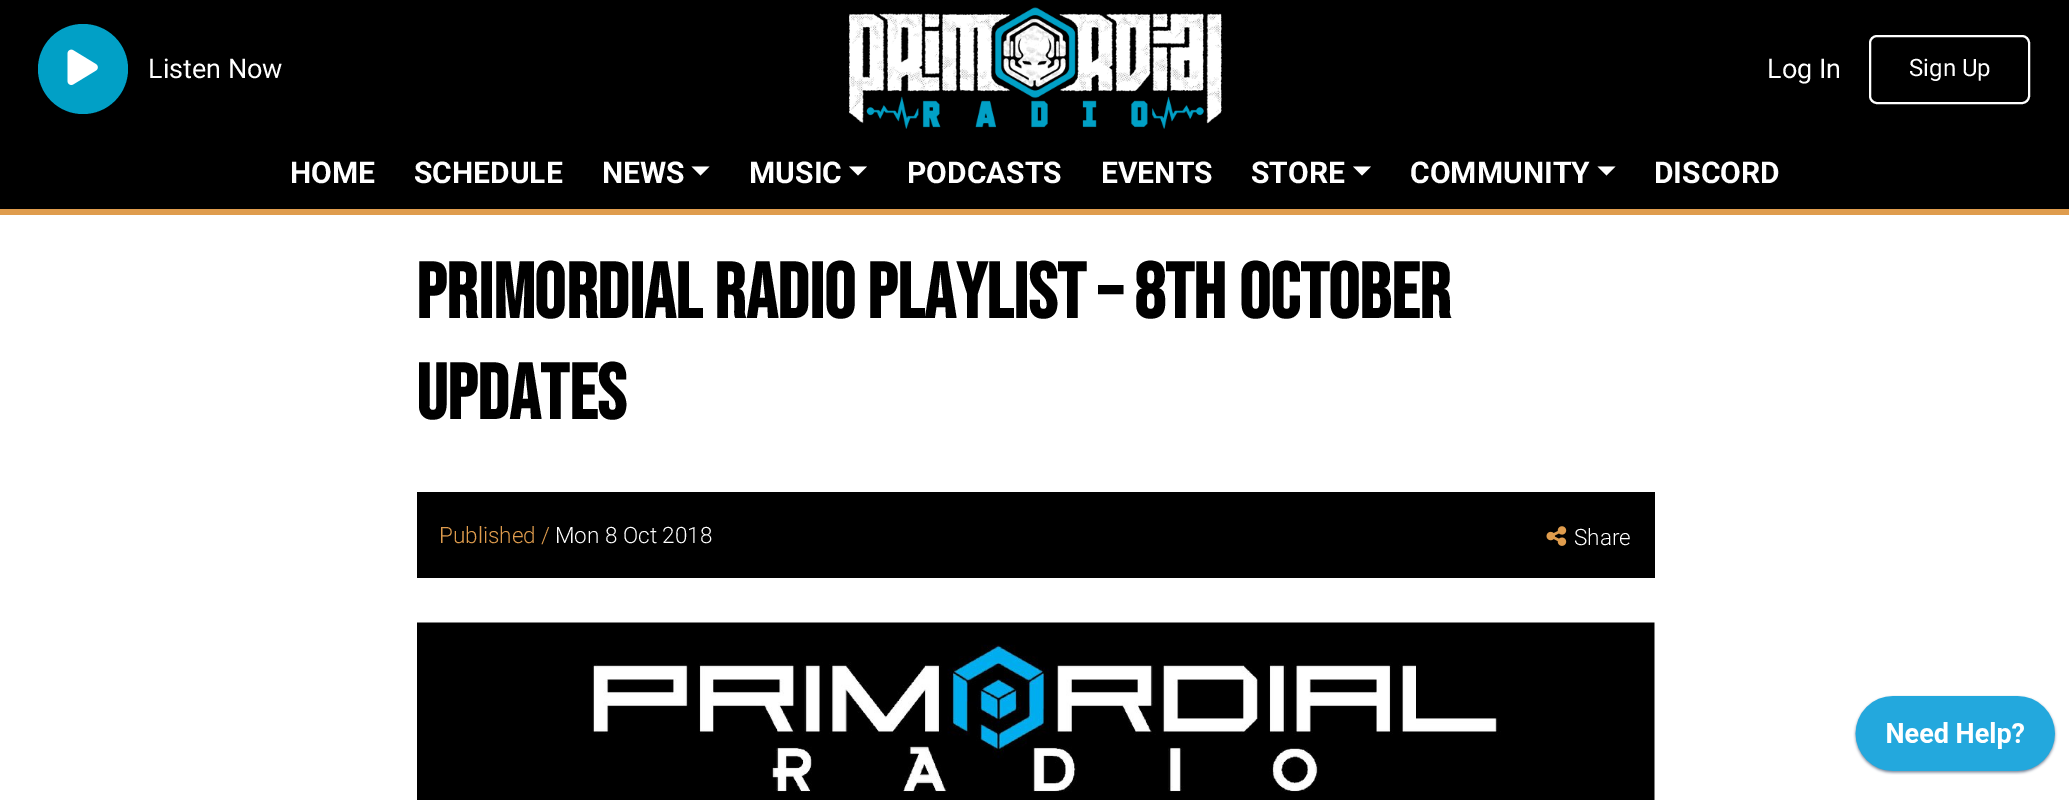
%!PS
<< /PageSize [2069 800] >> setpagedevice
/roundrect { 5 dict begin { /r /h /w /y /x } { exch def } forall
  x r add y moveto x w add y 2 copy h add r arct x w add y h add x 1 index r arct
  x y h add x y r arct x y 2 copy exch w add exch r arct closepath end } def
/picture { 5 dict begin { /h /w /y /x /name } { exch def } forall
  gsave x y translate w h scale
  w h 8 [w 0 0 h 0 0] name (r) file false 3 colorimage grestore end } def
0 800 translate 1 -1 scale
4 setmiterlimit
1 setgray
0 0 2069 800 rectfill
0 setgray
0 0 2069 209 rectfill
0.875 0.612 0.302 setrgbcolor
0 209 2069 6 rectfill
0.004 0.627 0.776 setrgbcolor
newpath 83 69 45 0 360 arc closepath fill
(img1.rgb) 67 49 31 36 picture
/Roboto-Regular [27 0 0 -27 0 0] selectfont
1 setgray
148 78 moveto (Listen Now) show
(img2.rgb) 849 7 373 122 picture
1767 78 moveto (Log In) show
2 setlinewidth
1870 36 159 67 7 roundrect stroke
/Roboto-Regular [24 0 0 -24 0 0] selectfont
1909 76 moveto (Sign Up) show
/Roboto-Bold [30 0 0 -30 0 0] selectfont
290 183 moveto (HOME) show
414 183 moveto (SCHEDULE) show
602 183 moveto (NEWS) show
newpath 691.5 166.5 moveto 709.5 166.5 lineto 700.5 175.5 lineto closepath fill
749 183 moveto (MUSIC) show
newpath 849 166.5 moveto 867 166.5 lineto 858 175.5 lineto closepath fill
907 183 moveto (PODCASTS) show
1101 183 moveto (EVENTS) show
1251 183 moveto (STORE) show
newpath 1353 166.5 moveto 1371 166.5 lineto 1362 175.5 lineto closepath fill
1410 183 moveto (COMMUNITY) show
newpath 1597.5 166.5 moveto 1615.5 166.5 lineto 1606.5 175.5 lineto closepath fill
1654 183 moveto (DISCORD) show
/BebasNeue-Bold [78 0 0 -78 0 0] selectfont
0 setgray
416 318 moveto (Primordial Radio Playlist – 8th October) show
416 419 moveto (Updates) show
417 492 1238 86 rectfill
/Roboto-Light [22.5 0 0 -22.5 0 0] selectfont
0.875 0.612 0.302 setrgbcolor
439 543 moveto (Published /) show
1 setgray
555 543 moveto (Mon 8 Oct 2018) show
(img3.rgb) 1546 526 21 20 picture
1574 545 moveto (Share) show
(img4.rgb) 417 622 1238 178 picture
(img5.rgb) 1853 695 205 80 picture
showpage
